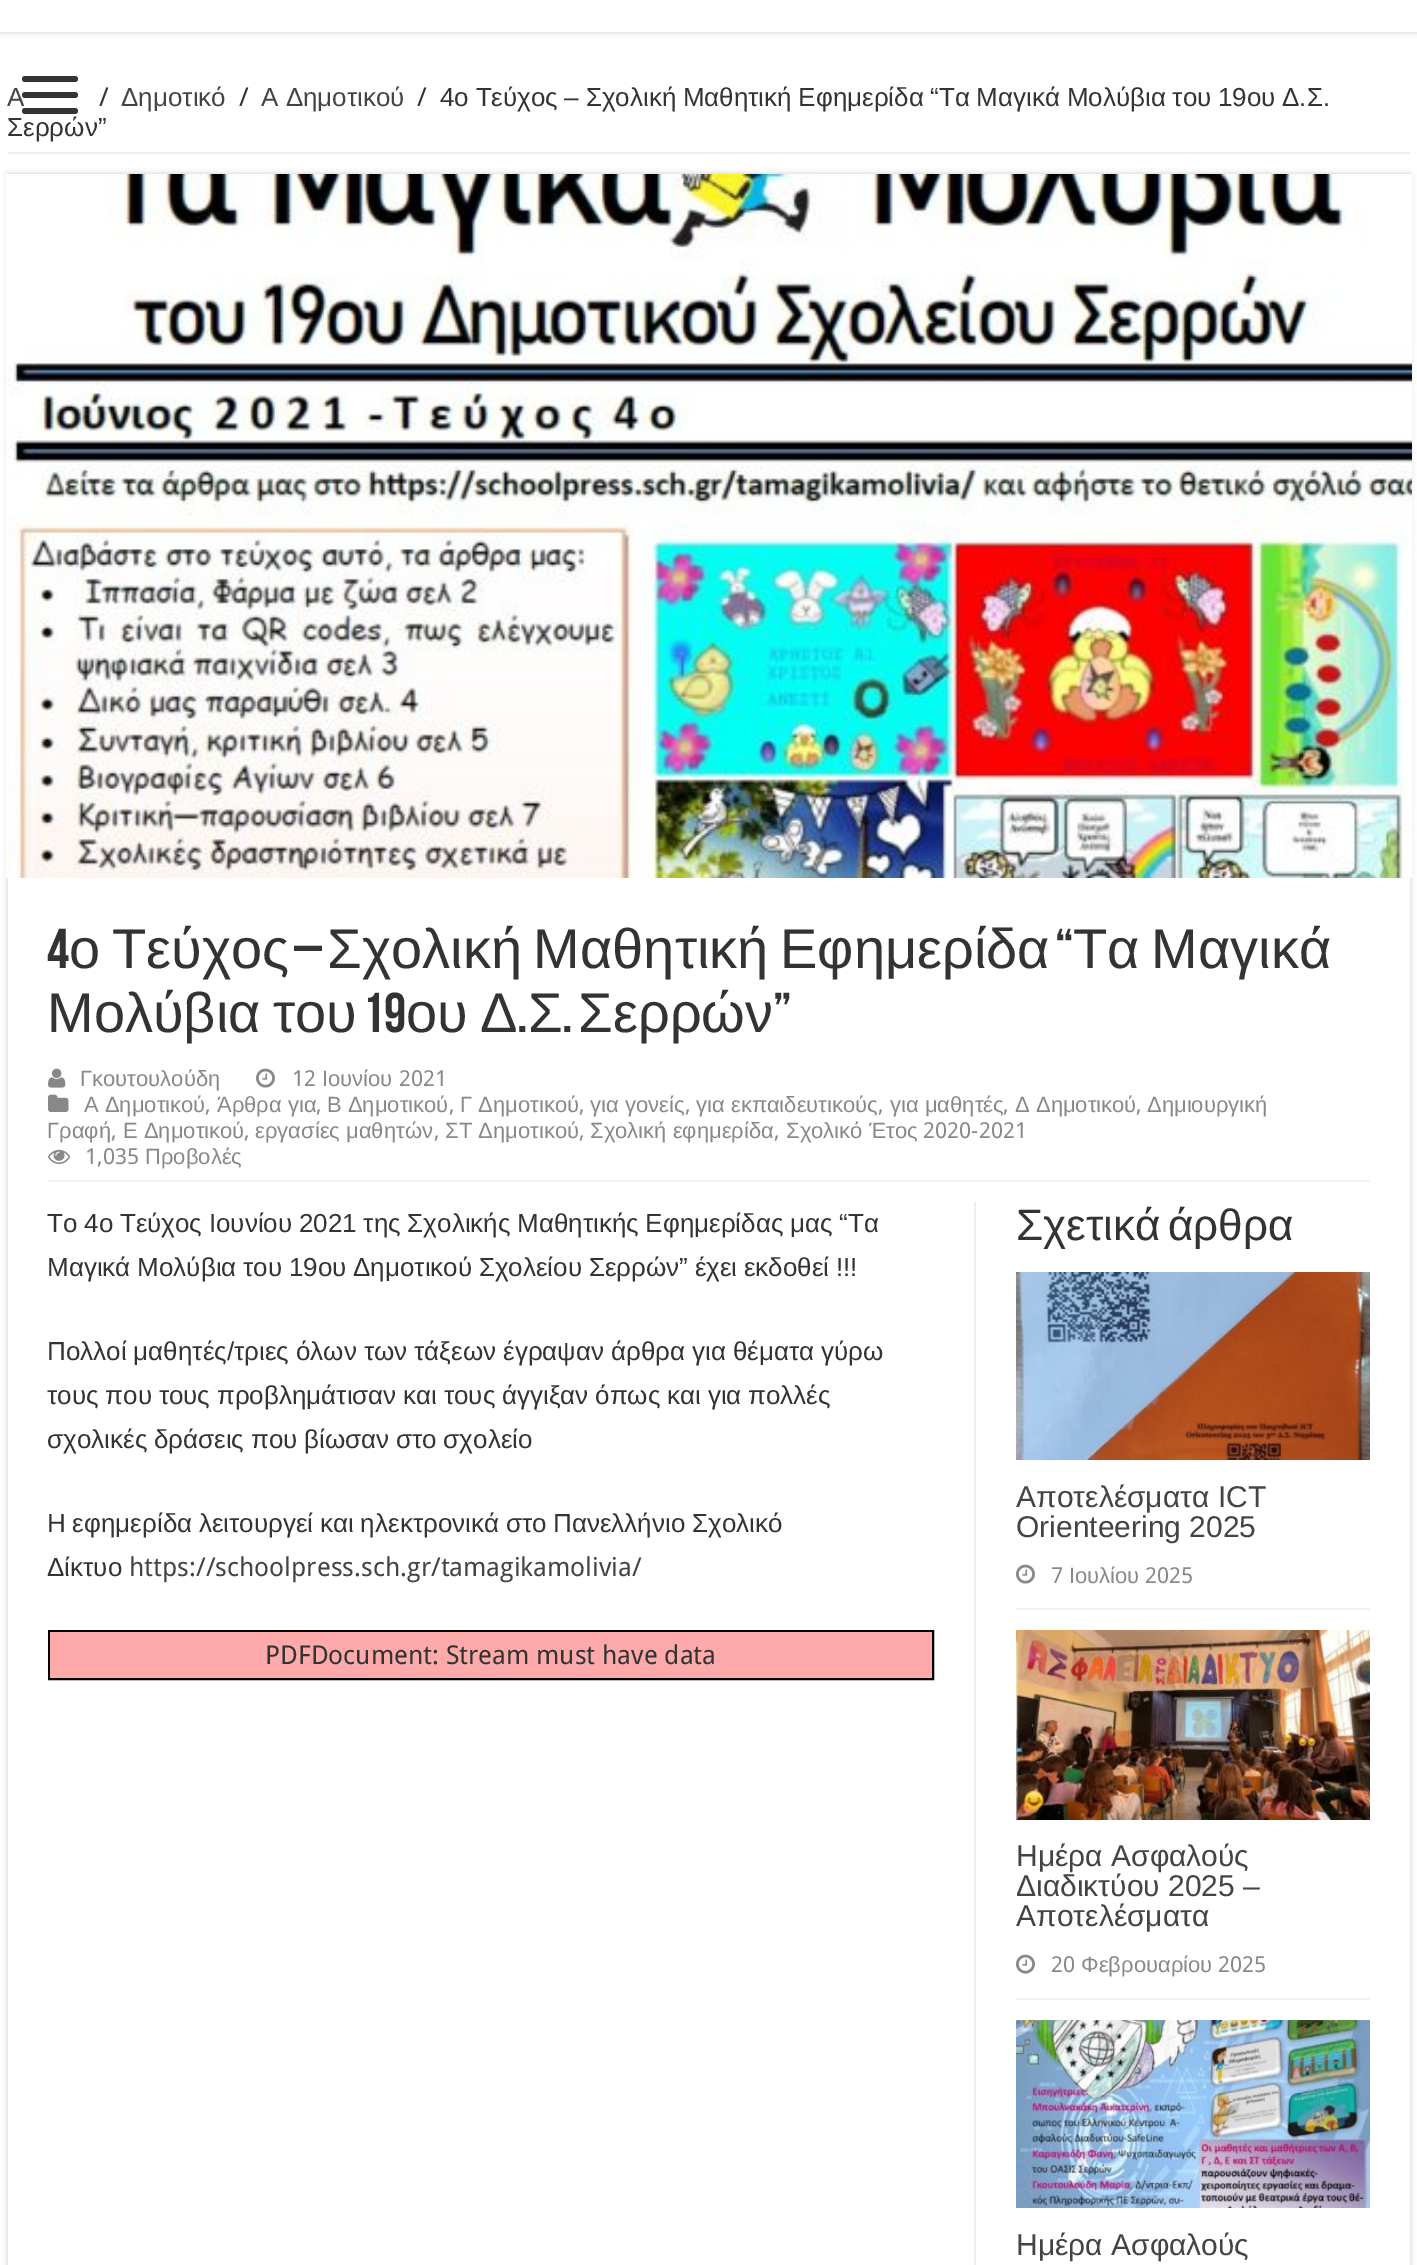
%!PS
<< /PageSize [1417 2265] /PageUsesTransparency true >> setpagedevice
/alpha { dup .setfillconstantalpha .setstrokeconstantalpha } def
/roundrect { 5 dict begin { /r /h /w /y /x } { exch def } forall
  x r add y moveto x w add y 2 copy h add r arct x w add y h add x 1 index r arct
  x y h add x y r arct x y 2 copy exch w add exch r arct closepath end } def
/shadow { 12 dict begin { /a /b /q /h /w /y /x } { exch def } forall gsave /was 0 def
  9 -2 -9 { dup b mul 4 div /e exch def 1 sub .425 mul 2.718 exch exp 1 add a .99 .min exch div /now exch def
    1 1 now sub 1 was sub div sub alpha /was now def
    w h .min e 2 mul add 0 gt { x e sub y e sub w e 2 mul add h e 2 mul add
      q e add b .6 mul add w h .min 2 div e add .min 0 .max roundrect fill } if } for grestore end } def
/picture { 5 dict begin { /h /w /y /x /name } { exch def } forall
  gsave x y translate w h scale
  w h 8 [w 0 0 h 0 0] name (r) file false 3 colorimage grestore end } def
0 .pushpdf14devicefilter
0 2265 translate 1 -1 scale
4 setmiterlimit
1 setgray
0 0 1417 2265 rectfill
gsave
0 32 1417 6 rectclip
0.792 setgray
0 0 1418 32 0 3 1 shadow
grestore
0.2 setgray
22 76 56 6 3 roundrect fill
/LiberationSans-Regular [26 0 0 -26 0 0] selectfont
0.267 setgray
7 106 moveto (Α) show
0.2 setgray
22 92 56 6 3 roundrect fill
22 108 56 6 3 roundrect fill
0.933 setgray
8 152 1402 2 rectfill
/DroidSans-Regular [26 0 0 -26 0 0] selectfont
0.2 setgray
99 106 moveto (/) show
/LiberationSans-Regular [26 0 0 -26 0 0] selectfont
0.267 setgray
121 106 moveto (Δημοτικό) show
/DroidSans-Regular [26 0 0 -26 0 0] selectfont
0.2 setgray
239 106 moveto (/) show
/LiberationSans-Regular [26 0 0 -26 0 0] selectfont
0.267 setgray
261 106 moveto (Α Δημοτικού) show
/DroidSans-Regular [26 0 0 -26 0 0] selectfont
0.2 setgray
417 106 moveto (/) show
/LiberationSans-Regular [26 0 0 -26 0 0] selectfont
440 106 moveto -0.6 0 32 (4ο Τεύχος – Σχολική Μαθητική Εφημερίδα “Τα Μαγικά Μολύβια του 19ου Δ.Σ.) widthshow
7 136 moveto (Σερρών”) show
gsave
newpath 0 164 moveto 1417 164 lineto 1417 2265 lineto 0 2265 lineto closepath 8 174 moveto 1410 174 lineto 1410 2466 lineto 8 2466 lineto closepath eoclip newpath
0.792 setgray
8 174 1402 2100 0 3 1 shadow
grestore
(img1.rgb) 6 174 1406 704 picture
/BebasNeue-Bold [56 0 0 -56 0 0] selectfont
47 968 moveto (4) show
/LiberationSans-Regular [56 0 0 -56 0 0] selectfont
69 968 moveto -4 0 32 (ο Τεύχος) widthshow
327 968 moveto -4 0 32 (Σχολική Μαθητική Εφημερίδα) widthshow
/BebasNeue-Bold [56 0 0 -56 0 0] selectfont
1055 968 moveto (“) show
/LiberationSans-Regular [56 0 0 -56 0 0] selectfont
1073 968 moveto -4 0 32 (Τα Μαγικά) widthshow
/BebasNeue-Bold [56 0 0 -56 0 0] selectfont
294 968 moveto (–) show
/LiberationSans-Regular [56 0 0 -56 0 0] selectfont
47 1032 moveto -3 0 32 (Μολύβια του) widthshow
/BebasNeue-Bold [56 0 0 -56 0 0] selectfont
362 1032 moveto (19) show
/LiberationSans-Regular [56 0 0 -56 0 0] selectfont
406 1032 moveto -3 0 32 (ου Δ) widthshow
/BebasNeue-Bold [56 0 0 -56 0 0] selectfont
517 1032 moveto (.) show
/LiberationSans-Regular [56 0 0 -56 0 0] selectfont
528 1032 moveto (Σ Σερρών) show
/BebasNeue-Bold [56 0 0 -56 0 0] selectfont
773 1032 moveto (”) show
562 1032 moveto (.) show
0.949 setgray
48 1180 1322 2 rectfill
(img2.rgb) 48 1068 18 20 picture
/LiberationSans-Regular [22 0 0 -22 0 0] selectfont
0.533 setgray
80 1086 moveto (Γκουτουλούδη) show
(img3.rgb) 256 1068 19 20 picture
/DroidSans-Regular [22 0 0 -22 0 0] selectfont
292 1086 moveto (12) show
/LiberationSans-Regular [22 0 0 -22 0 0] selectfont
322 1086 moveto (Ιουνίου) show
/DroidSans-Regular [22 0 0 -22 0 0] selectfont
399 1086 moveto (2021) show
(img4.rgb) 48 1094 21 18 picture
/LiberationSans-Regular [22 0 0 -22 0 0] selectfont
84 1112 moveto (Α Δημοτικού) show
/DroidSans-Regular [22 0 0 -22 0 0] selectfont
205 1112 moveto (,) show
/LiberationSans-Regular [22 0 0 -22 0 0] selectfont
217 1112 moveto (Άρθρα για) show
/DroidSans-Regular [22 0 0 -22 0 0] selectfont
316 1112 moveto (,) show
/LiberationSans-Regular [22 0 0 -22 0 0] selectfont
327 1112 moveto (Β Δημοτικού) show
/DroidSans-Regular [22 0 0 -22 0 0] selectfont
449 1112 moveto (,) show
/LiberationSans-Regular [22 0 0 -22 0 0] selectfont
460 1112 moveto (Γ Δημοτικού) show
/DroidSans-Regular [22 0 0 -22 0 0] selectfont
579 1112 moveto (,) show
/LiberationSans-Regular [22 0 0 -22 0 0] selectfont
590 1112 moveto (για γονείς) show
/DroidSans-Regular [22 0 0 -22 0 0] selectfont
685 1112 moveto (,) show
/LiberationSans-Regular [22 0 0 -22 0 0] selectfont
696 1112 moveto (για εκπαιδευτικούς) show
/DroidSans-Regular [22 0 0 -22 0 0] selectfont
878 1112 moveto (,) show
/LiberationSans-Regular [22 0 0 -22 0 0] selectfont
890 1112 moveto (για μαθητές) show
/DroidSans-Regular [22 0 0 -22 0 0] selectfont
1003 1112 moveto (,) show
/LiberationSans-Regular [22 0 0 -22 0 0] selectfont
1015 1112 moveto (Δ Δημοτικού) show
/DroidSans-Regular [22 0 0 -22 0 0] selectfont
1136 1112 moveto (,) show
/LiberationSans-Regular [22 0 0 -22 0 0] selectfont
1147 1112 moveto (Δημιουργική) show
47 1138 moveto (Γραφή) show
/DroidSans-Regular [22 0 0 -22 0 0] selectfont
111 1138 moveto (,) show
/LiberationSans-Regular [22 0 0 -22 0 0] selectfont
123 1138 moveto (Ε Δημοτικού) show
/DroidSans-Regular [22 0 0 -22 0 0] selectfont
244 1138 moveto (,) show
/LiberationSans-Regular [22 0 0 -22 0 0] selectfont
255 1138 moveto (εργασίες μαθητών) show
/DroidSans-Regular [22 0 0 -22 0 0] selectfont
434 1138 moveto (,) show
/LiberationSans-Regular [22 0 0 -22 0 0] selectfont
445 1138 moveto (ΣΤ Δημοτικού) show
/DroidSans-Regular [22 0 0 -22 0 0] selectfont
579 1138 moveto (,) show
/LiberationSans-Regular [22 0 0 -22 0 0] selectfont
590 1138 moveto (Σχολική εφημερίδα) show
/DroidSans-Regular [22 0 0 -22 0 0] selectfont
774 1138 moveto (,) show
/LiberationSans-Regular [22 0 0 -22 0 0] selectfont
786 1138 moveto (Σχολικό Έτος) show
/DroidSans-Regular [22 0 0 -22 0 0] selectfont
923 1138 moveto (2020-2021) show
(img5.rgb) 48 1149 22 15 picture
85 1164 moveto (1,035) show
/LiberationSans-Regular [22 0 0 -22 0 0] selectfont
145 1164 moveto (Προβολές) show
/LiberationSans-Regular [26 0 0 -26 0 0] selectfont
0.2 setgray
47 1232 moveto -0.5 0 32 (Το 4ο Τεύχος Ιουνίου 2021 της Σχολικής Μαθητικής Εφημερίδας μας “Τα) widthshow
47 1276 moveto -0.5 0 32 (Μαγικά Μολύβια του 19ου Δημοτικού Σχολείου Σερρών” έχει εκδοθεί !!!) widthshow
0.933 setgray
974 1202 2 1063 rectfill
/LiberationSans-Regular [44 0 0 -44 0 0] selectfont
0.2 setgray
1016 1240 moveto -5 0 32 (Σχετικά άρθρα) widthshow
(img6.rgb) 1016 1272 354 188 picture
/LiberationSans-Regular [30 0 0 -30 0 0] selectfont
0.267 setgray
1016 1507 moveto (Αποτελέσματα ICT) show
1016 1537 moveto (Orienteering 2025) show
0.949 setgray
1016 1608 354 2 rectfill
(img3.rgb) 1016 1564 19 20 picture
/DroidSans-Regular [22 0 0 -22 0 0] selectfont
0.533 setgray
1051 1583 moveto (7) show
/LiberationSans-Regular [22 0 0 -22 0 0] selectfont
1069 1583 moveto (Ιουλίου) show
/DroidSans-Regular [22 0 0 -22 0 0] selectfont
1145 1583 moveto (2025) show
(img7.rgb) 1016 1630 354 190 picture
/LiberationSans-Regular [30 0 0 -30 0 0] selectfont
0.267 setgray
1016 1866 moveto (Ημέρα Ασφαλούς) show
1016 1896 moveto (Διαδικτύου 2025 –) show
1016 1926 moveto (Αποτελέσματα) show
0.949 setgray
1016 1998 354 2 rectfill
(img3.rgb) 1016 1954 19 20 picture
/DroidSans-Regular [22 0 0 -22 0 0] selectfont
0.533 setgray
1051 1972 moveto (20) show
/LiberationSans-Regular [22 0 0 -22 0 0] selectfont
1081 1972 moveto (Φεβρουαρίου) show
/DroidSans-Regular [22 0 0 -22 0 0] selectfont
1218 1972 moveto (2025) show
(img8.rgb) 1016 2020 354 188 picture
/LiberationSans-Regular [30 0 0 -30 0 0] selectfont
0.267 setgray
1016 2255 moveto (Ημέρα Ασφαλούς) show
/LiberationSans-Regular [26 0 0 -26 0 0] selectfont
0.2 setgray
47 1360 moveto -0.25 0 32 (Πολλοί μαθητές/τριες όλων των τάξεων έγραψαν άρθρα για θέματα γύρω) widthshow
47 1404 moveto -0.5 0 32 (τους που τους προβλημάτισαν και τους άγγιξαν όπως και για πολλές) widthshow
47 1448 moveto -0.5 0 32 (σχολικές δράσεις που βίωσαν στο σχολείο) widthshow
47 1532 moveto -0.5 0 32 (Η εφημερίδα λειτουργεί και ηλεκτρονικά στο Πανελλήνιο Σχολικό) widthshow
47 1576 moveto (Δίκτυο) show
/DroidSans-Regular [26 0 0 -26 0 0] selectfont
0.267 setgray
129 1576 moveto (https://schoolpress.sch.gr/tamagikamolivia/) show
0 setgray
2 setlinewidth
49 1631 884 48 rectstroke
1 0.667 0.667 setrgbcolor
50 1632 882 46 rectfill
0.2 setgray
265 1664 moveto (PDFDocument: Stream must have data) show
.poppdf14devicefilter showpage
